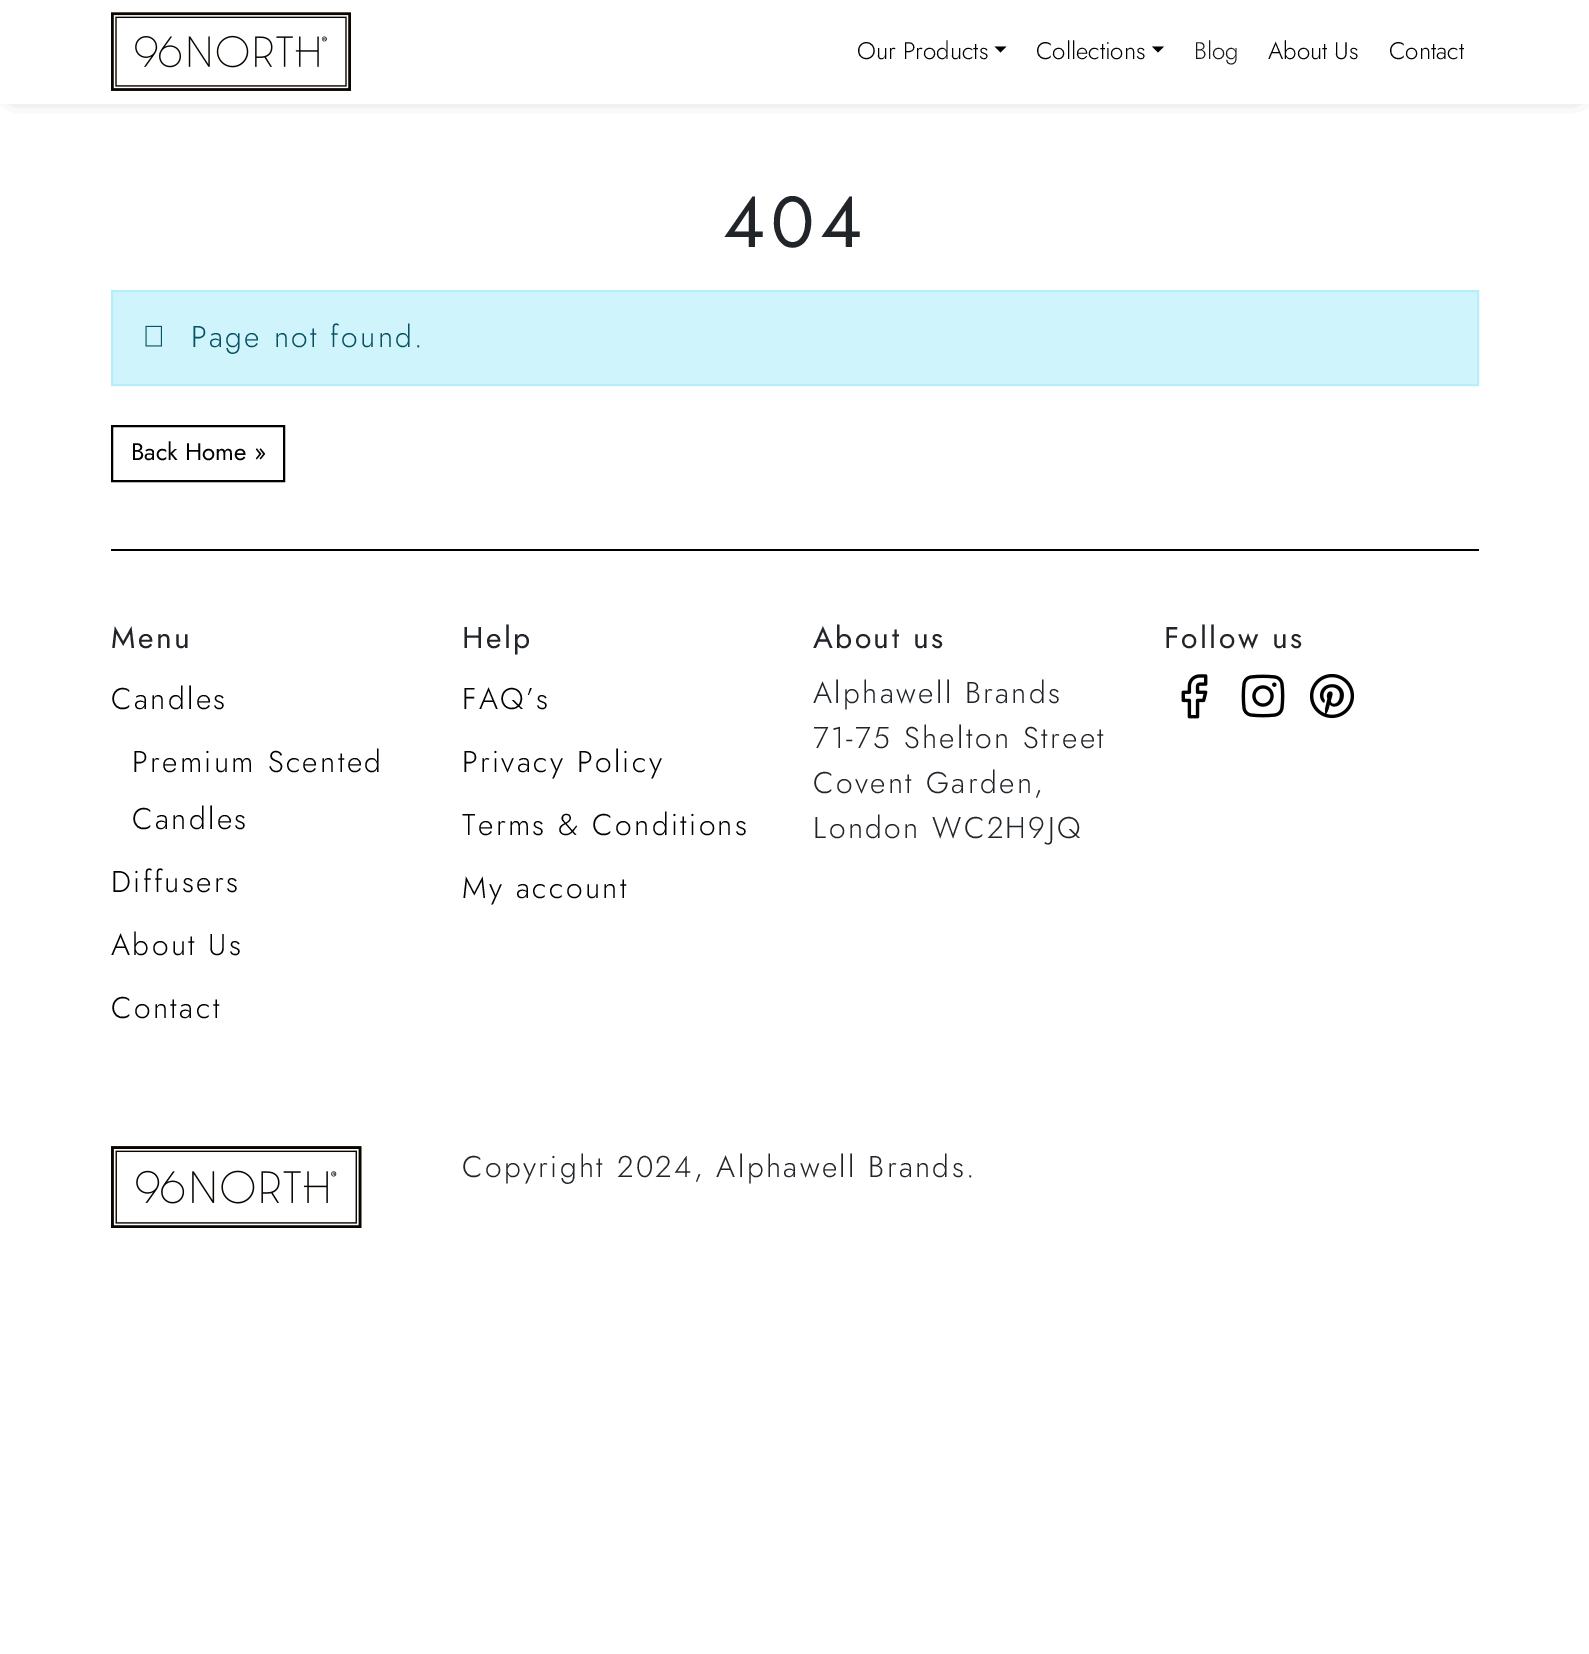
%!PS
<< /PageSize [1589 1654] /PageUsesTransparency true >> setpagedevice
/alpha { dup .setfillconstantalpha .setstrokeconstantalpha } def
/roundrect { 5 dict begin { /r /h /w /y /x } { exch def } forall
  x r add y moveto x w add y 2 copy h add r arct x w add y h add x 1 index r arct
  x y h add x y r arct x y 2 copy exch w add exch r arct closepath end } def
/shadow { 12 dict begin { /a /b /q /h /w /y /x } { exch def } forall gsave /was 0 def
  9 -2 -9 { dup b mul 4 div /e exch def 1 sub .425 mul 2.718 exch exp 1 add a .99 .min exch div /now exch def
    1 1 now sub 1 was sub div sub alpha /was now def
    w h .min e 2 mul add 0 gt { x e sub y e sub w e 2 mul add h e 2 mul add
      q e add b .6 mul add w h .min 2 div e add .min 0 .max roundrect fill } if } for grestore end } def
/picture { 5 dict begin { /h /w /y /x /name } { exch def } forall
  gsave x y translate w h scale
  w h 8 [w 0 0 h 0 0] name (r) file false 3 colorimage grestore end } def
0 .pushpdf14devicefilter
0 1654 translate 1 -1 scale
4 setmiterlimit
1 setgray
0 0 1589 1654 rectfill
0.2 setgray
15 15 1560 74 0 11 1 shadow
1 setgray
0 0 1589 104 rectfill
(img1.rgb) 111 12 240 79 picture
/Jost-Light [24 0 0 -24 0 0] selectfont
0 setgray
857 59 moveto (Our Products) show
newpath 994.5 46.5 moveto 1006.5 46.5 lineto 1000.5 52.5 lineto closepath fill
1036 59 moveto (Collections) show
newpath 1152 46.5 moveto 1164 46.5 lineto 1158 52.5 lineto closepath fill
0.102 setgray
1194 59 moveto (Blog) show
0 setgray
1268 59 moveto (About Us) show
1389 59 moveto (Contact) show
/Jost-Regular [72 0 0 -72 0 0] selectfont
0.129 0.145 0.161 setrgbcolor
723 247 moveto 6 0 (404) ashow
0.812 0.957 0.988 setrgbcolor
newpath 112 291 moveto 1478 291 lineto 1478 385 lineto 112 385 lineto closepath gsave fill grestore
0.714 0.937 0.984 setrgbcolor
2 setlinewidth
stroke
(img2.rgb) 145 325 17 22 picture
/Jost-Light [30 0 0 -30 0 0] selectfont
0.02 0.318 0.376 setrgbcolor
191 347 moveto 2.4 0 (Page not found.) ashow
0 setgray
112 426 172 55 rectstroke
/Jost-Regular [24 0 0 -24 0 0] selectfont
131 460 moveto (Back Home ») show
111 549 1368 2 rectfill
/Jost-Regular [30 0 0 -30 0 0] selectfont
0.129 0.145 0.161 setrgbcolor
111 648 moveto 2.4 0 (Menu) ashow
/Jost-Light [30 0 0 -30 0 0] selectfont
0 setgray
111 709 moveto 2.4 0 (Candles) ashow
132 772 moveto 2.4 0 (Premium Scented) ashow
132 829 moveto 2.4 0 (Candles) ashow
111 892 moveto 2.4 0 (Diffusers) ashow
111 955 moveto 2.4 0 (About Us) ashow
111 1018 moveto 2.4 0 (Contact) ashow
/Jost-Regular [30 0 0 -30 0 0] selectfont
0.129 0.145 0.161 setrgbcolor
462 648 moveto 2.4 0 (Help) ashow
/Jost-Light [30 0 0 -30 0 0] selectfont
0 setgray
462 709 moveto 2.4 0 (FAQ’s) ashow
462 772 moveto 2.4 0 (Privacy Policy) ashow
462 835 moveto 2.4 0 (Terms & Conditions) ashow
462 898 moveto 2.4 0 (My account) ashow
/Jost-Regular [30 0 0 -30 0 0] selectfont
0.129 0.145 0.161 setrgbcolor
813 648 moveto 2.4 0 (About us) ashow
/Jost-Light [30 0 0 -30 0 0] selectfont
813 703 moveto 2.4 0 (Alphawell Brands) ashow
813 748 moveto 2.4 0 (71-75 Shelton Street) ashow
813 793 moveto 2.4 0 (Covent Garden,) ashow
813 838 moveto 2.4 0 (London WC2H9JQ) ashow
/Jost-Regular [30 0 0 -30 0 0] selectfont
1164 648 moveto 2.4 0 (Follow us) ashow
(img3.rgb) 1181 674 27 45 picture
(img4.rgb) 1241 674 44 44 picture
(img5.rgb) 1310 674 45 45 picture
(img6.rgb) 111 1146 251 82 picture
/Jost-Light [30 0 0 -30 0 0] selectfont
462 1177 moveto 2.4 0 (Copyright 2024, Alphawell Brands.) ashow
.poppdf14devicefilter showpage
